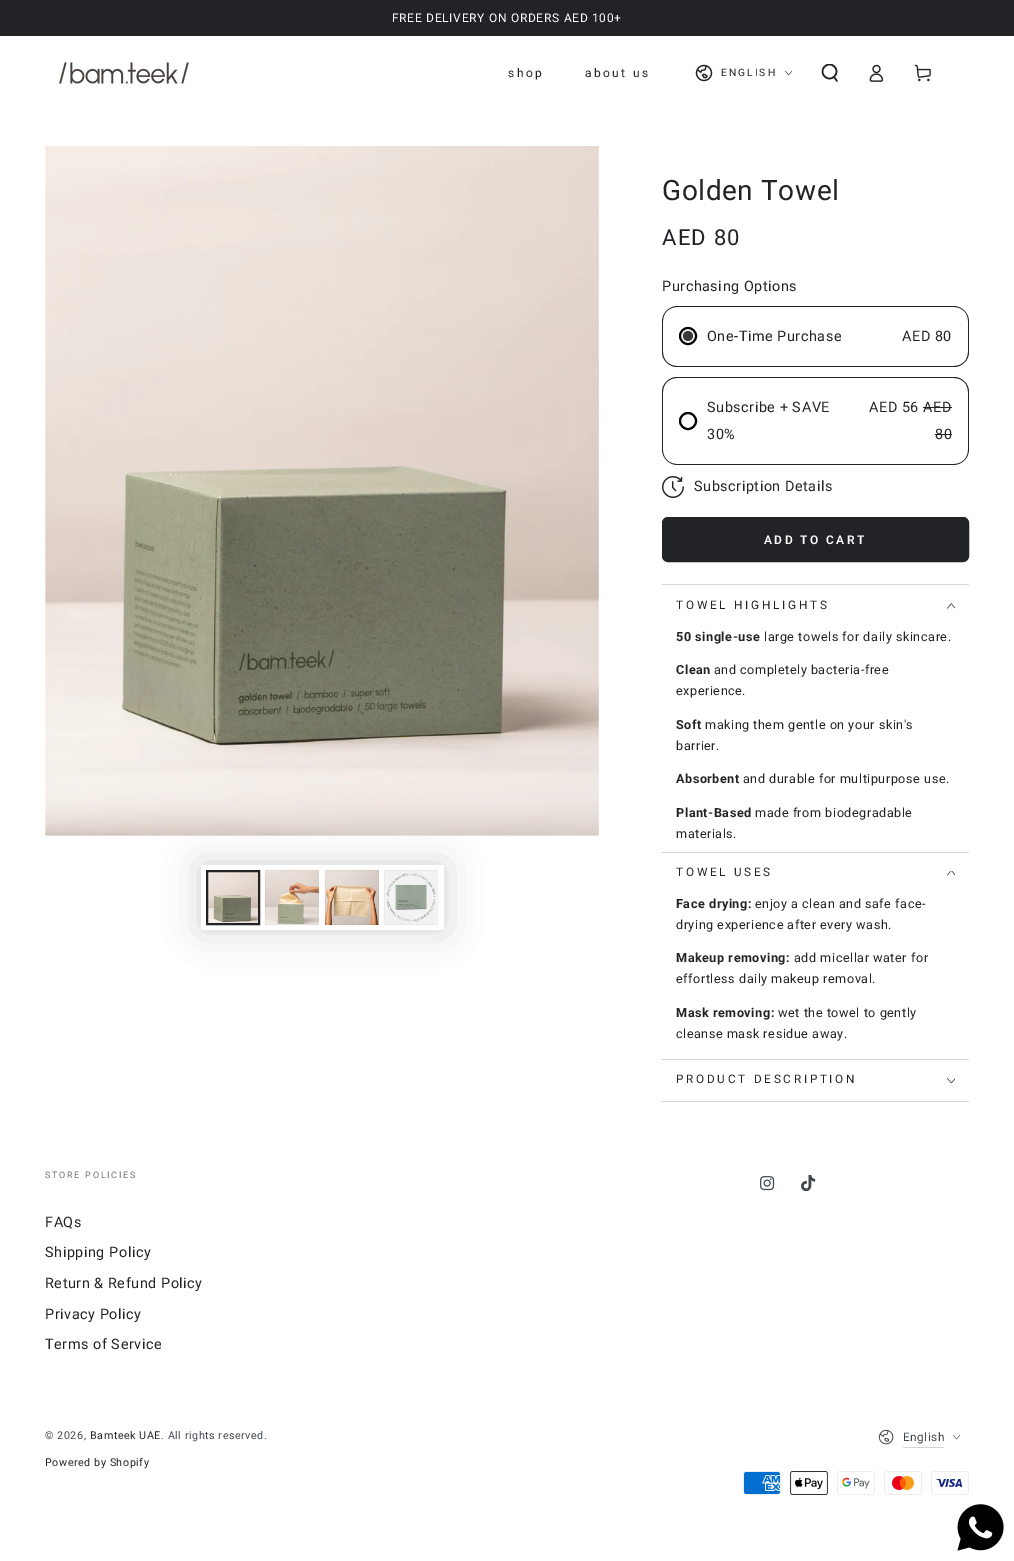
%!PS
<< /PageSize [1014 1561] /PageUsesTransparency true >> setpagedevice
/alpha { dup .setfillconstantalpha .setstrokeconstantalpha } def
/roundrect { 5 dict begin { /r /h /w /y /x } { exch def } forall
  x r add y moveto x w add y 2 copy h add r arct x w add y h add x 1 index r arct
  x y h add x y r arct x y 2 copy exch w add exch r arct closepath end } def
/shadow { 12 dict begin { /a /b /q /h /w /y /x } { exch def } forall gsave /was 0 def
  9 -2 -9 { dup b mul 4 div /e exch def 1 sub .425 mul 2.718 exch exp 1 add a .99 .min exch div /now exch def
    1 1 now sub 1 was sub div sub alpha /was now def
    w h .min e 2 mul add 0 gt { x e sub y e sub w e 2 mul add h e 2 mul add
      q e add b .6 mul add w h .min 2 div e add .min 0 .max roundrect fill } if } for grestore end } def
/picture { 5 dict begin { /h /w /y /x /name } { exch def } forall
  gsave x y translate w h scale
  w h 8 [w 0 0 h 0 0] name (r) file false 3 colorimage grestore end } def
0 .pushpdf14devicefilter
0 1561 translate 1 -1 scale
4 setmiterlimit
1 setgray
0 0 1014 1561 rectfill
0.129 0.137 0.149 setrgbcolor
0 0 1014 36 rectfill
/Roboto-Regular [12 0 0 -12 0 0] selectfont
1 setgray
392 22 moveto 0.7 0 (FREE DELIVERY ON ORDERS AED 100+) ashow
(img1.rgb) 59 62 130 22 picture
0.129 0.137 0.149 setrgbcolor
508 77 moveto 2.4 0 (shop) ashow
585 77 moveto 2.4 0 (about us) ashow
(img2.rgb) 695 64 18 18 picture
/Roboto-Regular [10.25 0 0 -10.25 0 0] selectfont
721 76 moveto 2 0 (ENGLISH) ashow
(img3.rgb) 785 70 8 6 picture
gsave
821 64 18 18 rectclip
1.6 setlinewidth
newpath 829.5 71.5 7 0 360 arc closepath stroke
grestore
1.6 setlinewidth
1 setlinecap
newpath 834 77 moveto 837 81 lineto stroke
(img4.rgb) 869 64 15 18 picture
(img5.rgb) 914 64 17 18 picture
(img6.rgb) 45 146 554 692 picture
gsave
newpath 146 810 moveto 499 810 lineto 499 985 lineto 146 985 lineto closepath 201 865 moveto 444 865 lineto 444 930 lineto 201 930 lineto closepath eoclip newpath
201 865 243 65 0 18 0.2 shadow
grestore
(img7.rgb) 208 872 50 51 picture
2 setlinewidth
0 setlinecap
207 871 52 53 rectstroke
(img8.rgb) 265 870 54 55 picture
0.04 alpha
0.9 setlinewidth
265.45 870.45 53.1 54.1 rectstroke
1 alpha
(img9.rgb) 325 870 54 55 picture
0.04 alpha
325.45 870.45 53.1 54.1 rectstroke
1 alpha
(img10.rgb) 384 870 54 55 picture
0.04 alpha
384.45 870.45 53.1 54.1 rectstroke
/Roboto-Regular [28 0 0 -28 0 0] selectfont
1 alpha
662 200 moveto 0.6 0 (Golden Towel) ashow
/Roboto-Regular [22 0 0 -22 0 0] selectfont
662 245 moveto 1.25 0 (AED 80) ashow
/Roboto-Regular [14.4 0 0 -14.4 0 0] selectfont
662 291 moveto 0.55 0 (Purchasing Options) ashow
newpath 678 306 moveto 669 306 662 313 662 322 curveto 662 352 lineto 662 360 669 367 677 367 curveto 954 367 lineto 962 367 969 360 969 352 curveto 969 322 lineto 969 313 962 306 953 306 curveto closepath 677 307 moveto 669 307 663 313 663 321 curveto 663 352 lineto 663 360 669 366 677 366 curveto 954 366 lineto 962 366 968 360 968 352 curveto 968 321 lineto 968 313 962 307 954 307 curveto closepath eofill
0 setgray
2 setlinewidth
newpath 688 336 8 0 360 arc closepath stroke
0.227 setgray
newpath 688 336 5 0 360 arc closepath fill
0.129 0.137 0.149 setrgbcolor
707 341 moveto 0.55 0 (One-Time Purchase) ashow
902 341 moveto 0.55 0 (AED 80) ashow
newpath 677 377 moveto 669 377 662 384 662 392 curveto 662 449 lineto 662 458 669 465 678 465 curveto 953 465 lineto 962 465 969 458 969 449 curveto 969 392 lineto 969 384 962 377 954 377 curveto closepath 677 378 moveto 669 378 663 384 663 392 curveto 663 450 lineto 663 458 669 464 677 464 curveto 954 464 lineto 962 464 968 458 968 450 curveto 968 392 lineto 968 384 962 378 954 378 curveto closepath eofill
0 setgray
newpath 688 421 8 0 360 arc closepath stroke
0.129 0.137 0.149 setrgbcolor
707 412 moveto 0.55 0 (Subscribe + SAVE) ashow
707 439 moveto 0.55 0 (30%) ashow
869 412 moveto 0.55 0 (AED 56 AED) ashow
935 439 moveto 0.55 0 (80) ashow
923 407 29 1 rectfill
935 434 17 1 rectfill
(img11.rgb) 662 476 22 22 picture
694 491 moveto 0.55 0 (Subscription Details) ashow
662.5 517.5 306 44 5.5 roundrect gsave fill grestore
1 setlinewidth
stroke
/Roboto-SemiBold [12 0 0 -12 0 0] selectfont
1 setgray
764 544 moveto 2.4 0 (ADD TO CART) ashow
0.824 0.835 0.851 setrgbcolor
662 584 307 1 rectfill
662 852 307 1 rectfill
/Roboto-Regular [11.75 0 0 -11.75 0 0] selectfont
0.129 0.137 0.149 setrgbcolor
676 609 moveto 2.75 0 (TOWEL HIGHLIGHTS) ashow
(img12.rgb) 947 603 8 6 picture
/Roboto-Bold [12.6 0 0 -12.6 0 0] selectfont
676 641 moveto 0.55 0 (50 single-use) ashow
/Roboto-Regular [12.6 0 0 -12.6 0 0] selectfont
764 641 moveto 0.55 0 (large towels for daily skincare.) ashow
/Roboto-Bold [12.6 0 0 -12.6 0 0] selectfont
676 674 moveto 0.55 0 (Clean) ashow
/Roboto-Regular [12.6 0 0 -12.6 0 0] selectfont
714 674 moveto 0.55 0 (and completely bacteria-free) ashow
676 695 moveto 0.55 0 (experience.) ashow
/Roboto-Bold [12.6 0 0 -12.6 0 0] selectfont
676 729 moveto 0.55 0 (Soft) ashow
/Roboto-Regular [12.6 0 0 -12.6 0 0] selectfont
705 729 moveto 0.55 0 (making them gentle on your skin's) ashow
676 750 moveto 0.55 0 (barrier.) ashow
/Roboto-Bold [12.6 0 0 -12.6 0 0] selectfont
676 783 moveto 0.55 0 (Absorbent) ashow
/Roboto-Regular [12.6 0 0 -12.6 0 0] selectfont
743 783 moveto 0.55 0 (and durable for multipurpose use.) ashow
/Roboto-Bold [12.6 0 0 -12.6 0 0] selectfont
676 817 moveto 0.55 0 (Plant-Based) ashow
/Roboto-Regular [12.6 0 0 -12.6 0 0] selectfont
755 817 moveto 0.55 0 (made from biodegradable) ashow
676 838 moveto 0.55 0 (materials.) ashow
0.824 0.835 0.851 setrgbcolor
662 1059 307 1 rectfill
/Roboto-Regular [11.75 0 0 -11.75 0 0] selectfont
0.129 0.137 0.149 setrgbcolor
676 876 moveto 2.75 0 (TOWEL USES) ashow
(img13.rgb) 947 871 8 5 picture
/Roboto-Bold [12.6 0 0 -12.6 0 0] selectfont
676 908 moveto 0.55 0 (Face drying:) ashow
/Roboto-Regular [12.6 0 0 -12.6 0 0] selectfont
755 908 moveto 0.55 0 (enjoy a clean and safe face-) ashow
676 929 moveto 0.55 0 (drying experience after every wash.) ashow
/Roboto-Bold [12.6 0 0 -12.6 0 0] selectfont
676 962 moveto 0.55 0 (Makeup removing:) ashow
/Roboto-Regular [12.6 0 0 -12.6 0 0] selectfont
794 962 moveto 0.55 0 (add micellar water for) ashow
676 983 moveto 0.55 0 (effortless daily makeup removal.) ashow
/Roboto-Bold [12.6 0 0 -12.6 0 0] selectfont
676 1017 moveto 0.55 0 (Mask removing:) ashow
/Roboto-Regular [12.6 0 0 -12.6 0 0] selectfont
778 1017 moveto 0.55 0 (wet the towel to gently) ashow
676 1038 moveto 0.55 0 (cleanse mask residue away.) ashow
0.824 0.835 0.851 setrgbcolor
662 1101 307 1 rectfill
/Roboto-Regular [11.75 0 0 -11.75 0 0] selectfont
0.129 0.137 0.149 setrgbcolor
676 1083 moveto 2.75 0 (PRODUCT DESCRIPTION) ashow
(img14.rgb) 947 1078 8 5 picture
/Roboto-Regular [9 0 0 -9 0 0] selectfont
0.42 0.443 0.467 setrgbcolor
45 1178 moveto 1.75 0 (STORE POLICIES) ashow
/Roboto-Regular [14.4 0 0 -14.4 0 0] selectfont
0.129 0.137 0.149 setrgbcolor
45 1227 moveto 0.55 0 (FAQs) ashow
45 1257 moveto 0.55 0 (Shipping Policy) ashow
45 1288 moveto 0.55 0 (Return & Refund Policy) ashow
45 1319 moveto 0.55 0 (Privacy Policy) ashow
45 1349 moveto 0.55 0 (Terms of Service) ashow
(img15.rgb) 760 1176 15 15 picture
(img16.rgb) 801 1175 15 16 picture
/Roboto-Regular [10.75 0 0 -10.75 0 0] selectfont
0.259 0.278 0.298 setrgbcolor
45 1439 moveto 0.55 0 (© 2026,) ashow
0.129 0.137 0.149 setrgbcolor
90 1439 moveto 0.55 0 (Bamteek UAE) ashow
0.259 0.278 0.298 setrgbcolor
161 1439 moveto 0.55 0 (. All rights reserved.) ashow
0.129 0.137 0.149 setrgbcolor
45 1466 moveto 0.55 0 (Powered by Shopify) ashow
(img17.rgb) 878 1429 16 16 picture
0.824 0.835 0.851 setrgbcolor
903 1447 41 1 rectfill
/Roboto-Regular [11.75 0 0 -11.75 0 0] selectfont
0.259 0.278 0.298 setrgbcolor
903 1441 moveto 0.5 0 (English) ashow
(img18.rgb) 953 1434 7 6 picture
(img19.rgb) 743 1471 38 24 picture
(img20.rgb) 790 1471 38 24 picture
(img21.rgb) 837 1471 38 24 picture
(img22.rgb) 884 1471 38 24 picture
(img23.rgb) 931 1471 38 24 picture
(img24.rgb) 957 1504 47 47 picture
.poppdf14devicefilter showpage
